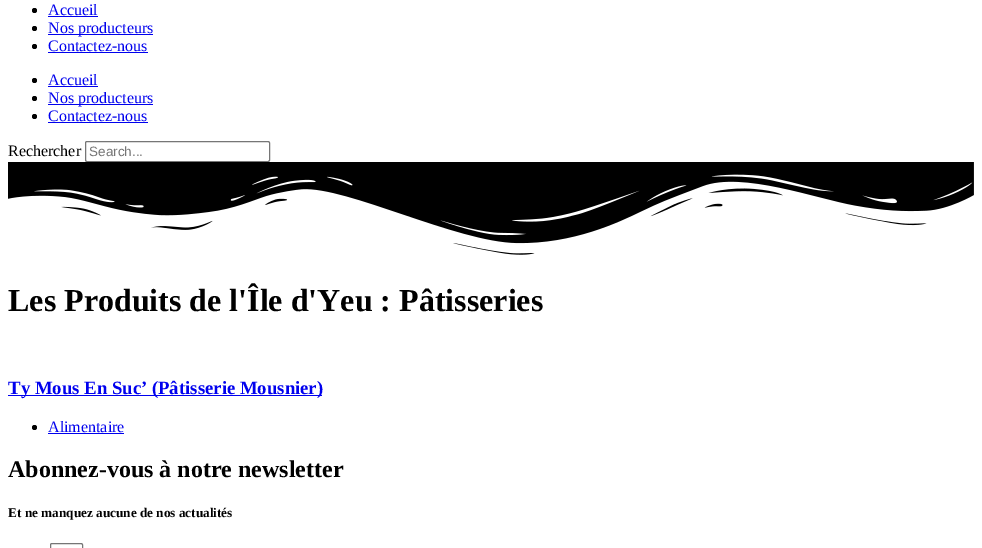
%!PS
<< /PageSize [982 548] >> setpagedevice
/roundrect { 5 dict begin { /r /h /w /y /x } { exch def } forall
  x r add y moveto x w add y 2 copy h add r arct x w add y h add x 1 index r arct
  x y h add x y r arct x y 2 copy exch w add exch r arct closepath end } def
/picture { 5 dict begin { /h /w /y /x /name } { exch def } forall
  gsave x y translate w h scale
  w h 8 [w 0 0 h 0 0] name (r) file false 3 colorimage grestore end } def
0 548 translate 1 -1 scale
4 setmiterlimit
1 setgray
0 0 982 548 rectfill
0 setgray
newpath 34.5 10.5 2.5 0 360 arc closepath fill
/LiberationSerif-Regular [16 0 0 -16 0 0] selectfont
0 0 0.933 setrgbcolor
48 15 moveto (Accueil) show
48 16 50 1 rectfill
0 setgray
newpath 34.5 28.5 2.5 0 360 arc closepath fill
0 0 0.933 setrgbcolor
48 34 105 1 rectfill
48 33 moveto (Nos producteurs) show
0 setgray
newpath 34.5 46.5 2.5 0 360 arc closepath fill
0 0 0.933 setrgbcolor
48 51 moveto (Contactez-nous) show
48 52 100 1 rectfill
0 setgray
newpath 34.5 80.5 2.5 0 360 arc closepath fill
0 0 0.933 setrgbcolor
48 85 moveto (Accueil) show
48 86 50 1 rectfill
0 setgray
newpath 34.5 98.5 2.5 0 360 arc closepath fill
0 0 0.933 setrgbcolor
48 104 105 1 rectfill
48 103 moveto (Nos producteurs) show
0 setgray
newpath 34.5 116.5 2.5 0 360 arc closepath fill
0 0 0.933 setrgbcolor
48 121 moveto (Contactez-nous) show
48 122 100 1 rectfill
0 setgray
8 156 moveto (Rechercher) show
0.463 setgray
85.5 141.5 184 20 1.5 roundrect stroke
/LiberationSans-Regular [13.5 0 0 -13.5 0 0] selectfont
0.459 setgray
89 156 moveto (Search...) show
(img1.rgb) 8 162 966 93 picture
/LiberationSerif-Bold [32 0 0 -32 0 0] selectfont
0 setgray
8 311 moveto (Les Produits de l'Île d'Yeu : Pâtisseries) show
0 0 0.933 setrgbcolor
8 395 314 1 rectfill
/LiberationSerif-Bold [18.75 0 0 -18.75 0 0] selectfont
8 394 moveto (Ty Mous En Suc’ \(Pâtisserie Mousnier\)) show
0 setgray
newpath 34.5 427.5 2.5 0 360 arc closepath fill
/LiberationSerif-Regular [16 0 0 -16 0 0] selectfont
0 0 0.933 setrgbcolor
48 432 moveto (Alimentaire) show
48 433 76 1 rectfill
/LiberationSerif-Bold [24 0 0 -24 0 0] selectfont
0 setgray
8 477 moveto (Abonnez-vous à notre newsletter) show
/LiberationSerif-Bold [13.25 0 0 -13.25 0 0] selectfont
8 517 moveto (Et ne manquez aucune de nos actualités) show
0.463 setgray
50.5 543.5 32 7 1.5 roundrect stroke
showpage
